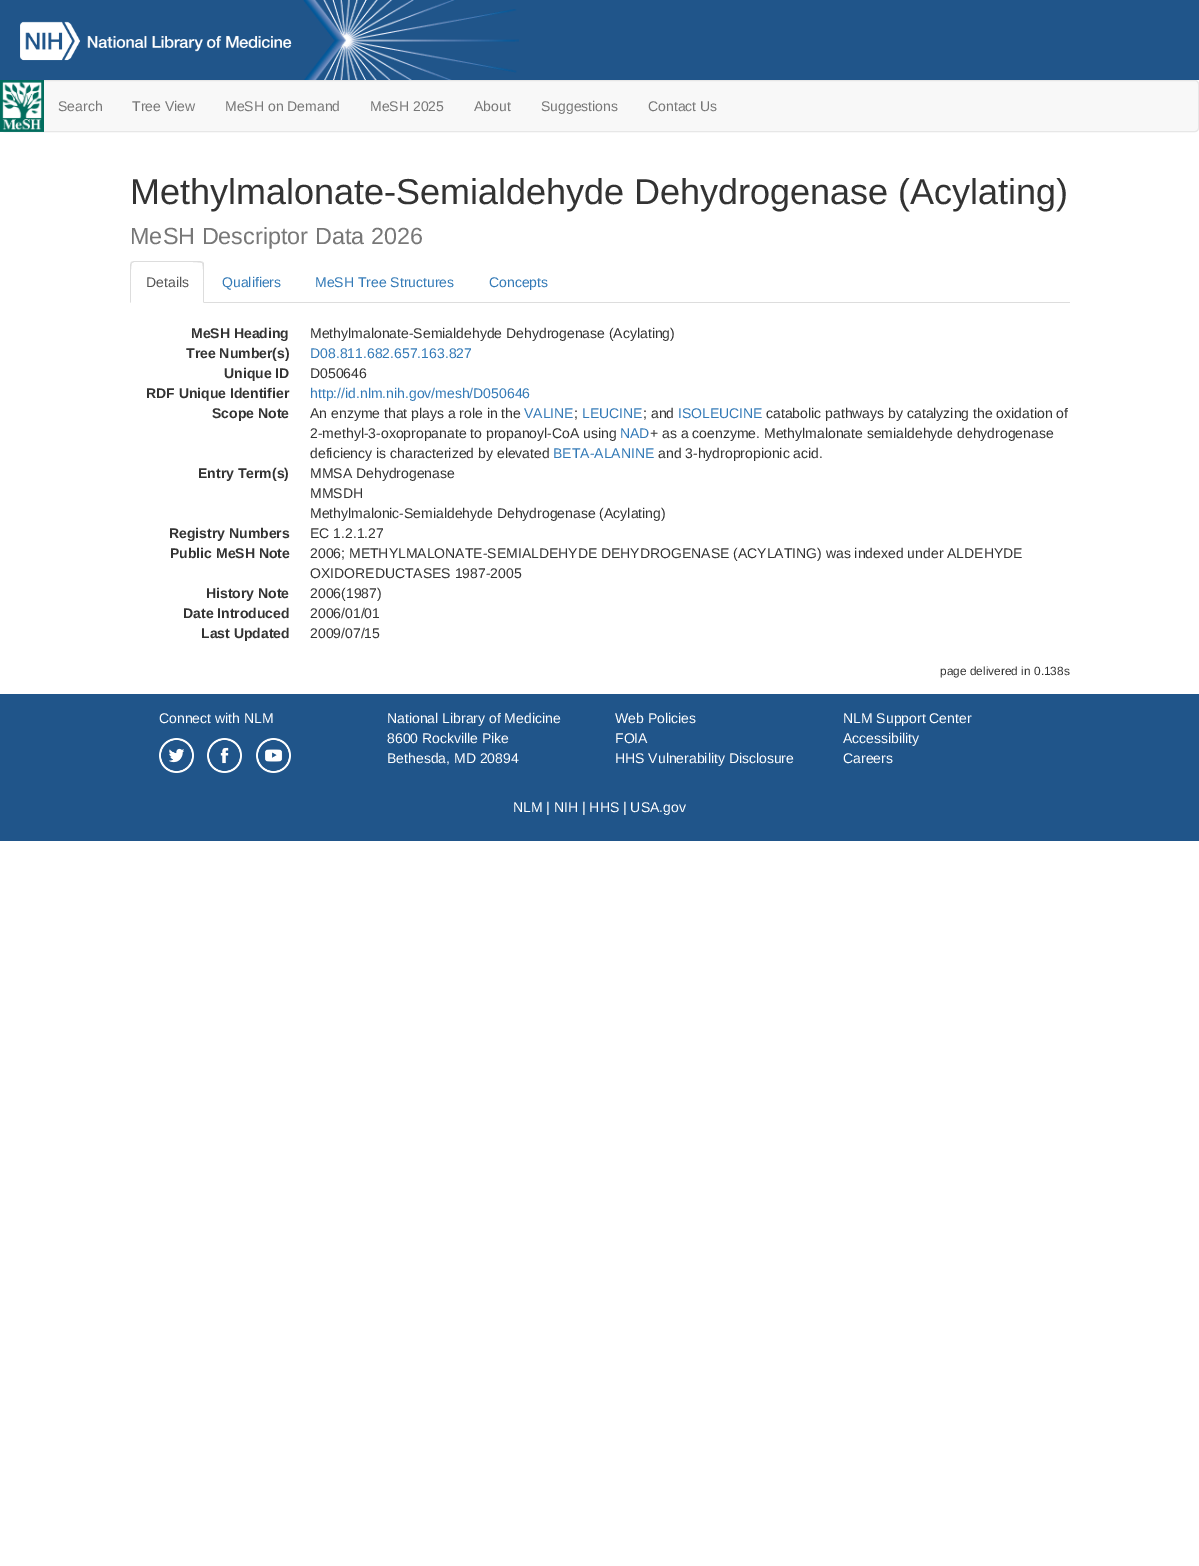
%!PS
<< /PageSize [1199 1566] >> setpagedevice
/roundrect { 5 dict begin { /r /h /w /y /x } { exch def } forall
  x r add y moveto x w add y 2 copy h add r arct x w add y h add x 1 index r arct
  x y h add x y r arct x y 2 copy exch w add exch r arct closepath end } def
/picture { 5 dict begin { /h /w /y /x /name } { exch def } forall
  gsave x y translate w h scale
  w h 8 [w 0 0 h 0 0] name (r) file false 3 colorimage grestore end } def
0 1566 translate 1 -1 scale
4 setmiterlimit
1 setgray
0 0 1199 1566 rectfill
0.125 0.333 0.541 setrgbcolor
0 0 1199 80 rectfill
(img1.rgb) 303 0 216 80 picture
(img2.rgb) 20 21 272 40 picture
0.973 setgray
0.5 80.5 1198 51 3.5 roundrect gsave fill grestore
0.906 setgray
stroke
(img3.rgb) 0 80 44 52 picture
/LiberationSans-Regular [14 0 0 -14 0 0] selectfont
0.467 setgray
58 111 moveto (Search) show
132 111 moveto (Tree View) show
225 111 moveto (MeSH on Demand) show
370 111 moveto (MeSH 2025) show
474 111 moveto (About) show
541 111 moveto (Suggestions) show
648 111 moveto (Contact Us) show
/LiberationSans-Regular [36 0 0 -36 0 0] selectfont
0.2 setgray
130 204 moveto (Methylmalonate-Semialdehyde Dehydrogenase \(Acylating\)) show
/LiberationSans-Regular [23.4 0 0 -23.4 0 0] selectfont
0.467 setgray
130 244 moveto (MeSH Descriptor Data 2026) show
0.867 setgray
204 302 866 1 rectfill
newpath 134 261 moveto 131 262 lineto 132 263 lineto 134 262 lineto 145 262 lineto 151 262 200 261 202 263 curveto 203 262 lineto 200 261 lineto closepath fill
newpath 204 303 moveto 204 265 lineto 204 264 204 263 203 262 curveto 202 263 lineto 204 265 203 297 203 302 curveto closepath fill
newpath 130 303 moveto 131 302 lineto 131 297 130 265 132 263 curveto 131 262 lineto 130 265 lineto closepath fill
/LiberationSans-Regular [14 0 0 -14 0 0] selectfont
0.333 setgray
146 287 moveto (Details) show
0.2 0.478 0.718 setrgbcolor
222 287 moveto (Qualifiers) show
315 287 moveto (MeSH Tree Structures) show
489 287 moveto (Concepts) show
/LiberationSans-Bold [14 0 0 -14 0 0] selectfont
0.2 setgray
191 338 moveto (MeSH Heading) show
/LiberationSans-Regular [14 0 0 -14 0 0] selectfont
310 338 moveto (Methylmalonate-Semialdehyde Dehydrogenase \(Acylating\)) show
/LiberationSans-Bold [14 0 0 -14 0 0] selectfont
186 358 moveto (Tree Number\(s\)) show
/LiberationSans-Regular [14 0 0 -14 0 0] selectfont
0.2 0.478 0.718 setrgbcolor
310 358 moveto (D08.811.682.657.163.827) show
/LiberationSans-Bold [14 0 0 -14 0 0] selectfont
0.2 setgray
224 378 moveto (Unique ID) show
/LiberationSans-Regular [14 0 0 -14 0 0] selectfont
310 378 moveto (D050646) show
/LiberationSans-Bold [14 0 0 -14 0 0] selectfont
146 398 moveto (RDF Unique Identifier) show
/LiberationSans-Regular [14 0 0 -14 0 0] selectfont
0.2 0.478 0.718 setrgbcolor
310 398 moveto (http://id.nlm.nih.gov/mesh/D050646) show
/LiberationSans-Bold [14 0 0 -14 0 0] selectfont
0.2 setgray
212 418 moveto (Scope Note) show
/LiberationSans-Regular [14 0 0 -14 0 0] selectfont
310 418 moveto (An enzyme that plays a role in the) show
0.2 0.478 0.718 setrgbcolor
524 418 moveto (VALINE) show
0.2 setgray
574 418 moveto (;) show
0.2 0.478 0.718 setrgbcolor
582 418 moveto (LEUCINE) show
0.2 setgray
643 418 moveto (; and) show
0.2 0.478 0.718 setrgbcolor
678 418 moveto (ISOLEUCINE) show
0.2 setgray
766 418 moveto (catabolic pathways by catalyzing the oxidation of) show
310 438 moveto (2-methyl-3-oxopropanate to propanoyl-CoA using) show
0.2 0.478 0.718 setrgbcolor
620 438 moveto (NAD) show
0.2 setgray
650 438 moveto (+ as a coenzyme. Methylmalonate semialdehyde dehydrogenase) show
310 458 moveto (deficiency is characterized by elevated) show
0.2 0.478 0.718 setrgbcolor
553 458 moveto (BETA-ALANINE) show
0.2 setgray
658 458 moveto (and 3-hydropropionic acid.) show
/LiberationSans-Bold [14 0 0 -14 0 0] selectfont
198 478 moveto (Entry Term\(s\)) show
/LiberationSans-Regular [14 0 0 -14 0 0] selectfont
310 478 moveto (MMSA Dehydrogenase) show
310 498 moveto (MMSDH) show
310 518 moveto (Methylmalonic-Semialdehyde Dehydrogenase \(Acylating\)) show
/LiberationSans-Bold [14 0 0 -14 0 0] selectfont
169 538 moveto (Registry Numbers) show
/LiberationSans-Regular [14 0 0 -14 0 0] selectfont
310 538 moveto (EC 1.2.1.27) show
/LiberationSans-Bold [14 0 0 -14 0 0] selectfont
170 558 moveto (Public MeSH Note) show
/LiberationSans-Regular [14 0 0 -14 0 0] selectfont
310 558 moveto (2006; METHYLMALONATE-SEMIALDEHYDE DEHYDROGENASE \(ACYLATING\) was indexed under ALDEHYDE) show
310 578 moveto (OXIDOREDUCTASES 1987-2005) show
/LiberationSans-Bold [14 0 0 -14 0 0] selectfont
206 598 moveto (History Note) show
/LiberationSans-Regular [14 0 0 -14 0 0] selectfont
310 598 moveto (2006\(1987\)) show
/LiberationSans-Bold [14 0 0 -14 0 0] selectfont
183 618 moveto (Date Introduced) show
/LiberationSans-Regular [14 0 0 -14 0 0] selectfont
310 618 moveto (2006/01/01) show
/LiberationSans-Bold [14 0 0 -14 0 0] selectfont
201 638 moveto (Last Updated) show
/LiberationSans-Regular [14 0 0 -14 0 0] selectfont
310 638 moveto (2009/07/15) show
/LiberationSans-Regular [11.9 0 0 -11.9 0 0] selectfont
940 675 moveto (page delivered in 0.138s) show
0.125 0.333 0.541 setrgbcolor
0 694 1199 147 rectfill
/LiberationSans-Regular [14 0 0 -14 0 0] selectfont
1 setgray
159 723 moveto (Connect with NLM) show
(img4.rgb) 159 738 35 35 picture
(img5.rgb) 207 738 35 35 picture
(img6.rgb) 256 738 35 35 picture
387 723 moveto (National Library of Medicine) show
387 743 moveto (8600 Rockville Pike) show
387 763 moveto (Bethesda, MD 20894) show
615 723 moveto (Web Policies) show
615 743 moveto (FOIA) show
615 763 moveto (HHS Vulnerability Disclosure) show
843 723 moveto (NLM Support Center) show
843 743 moveto (Accessibility) show
843 763 moveto (Careers) show
513 812 moveto (NLM | NIH | HHS | USA.gov) show
showpage
